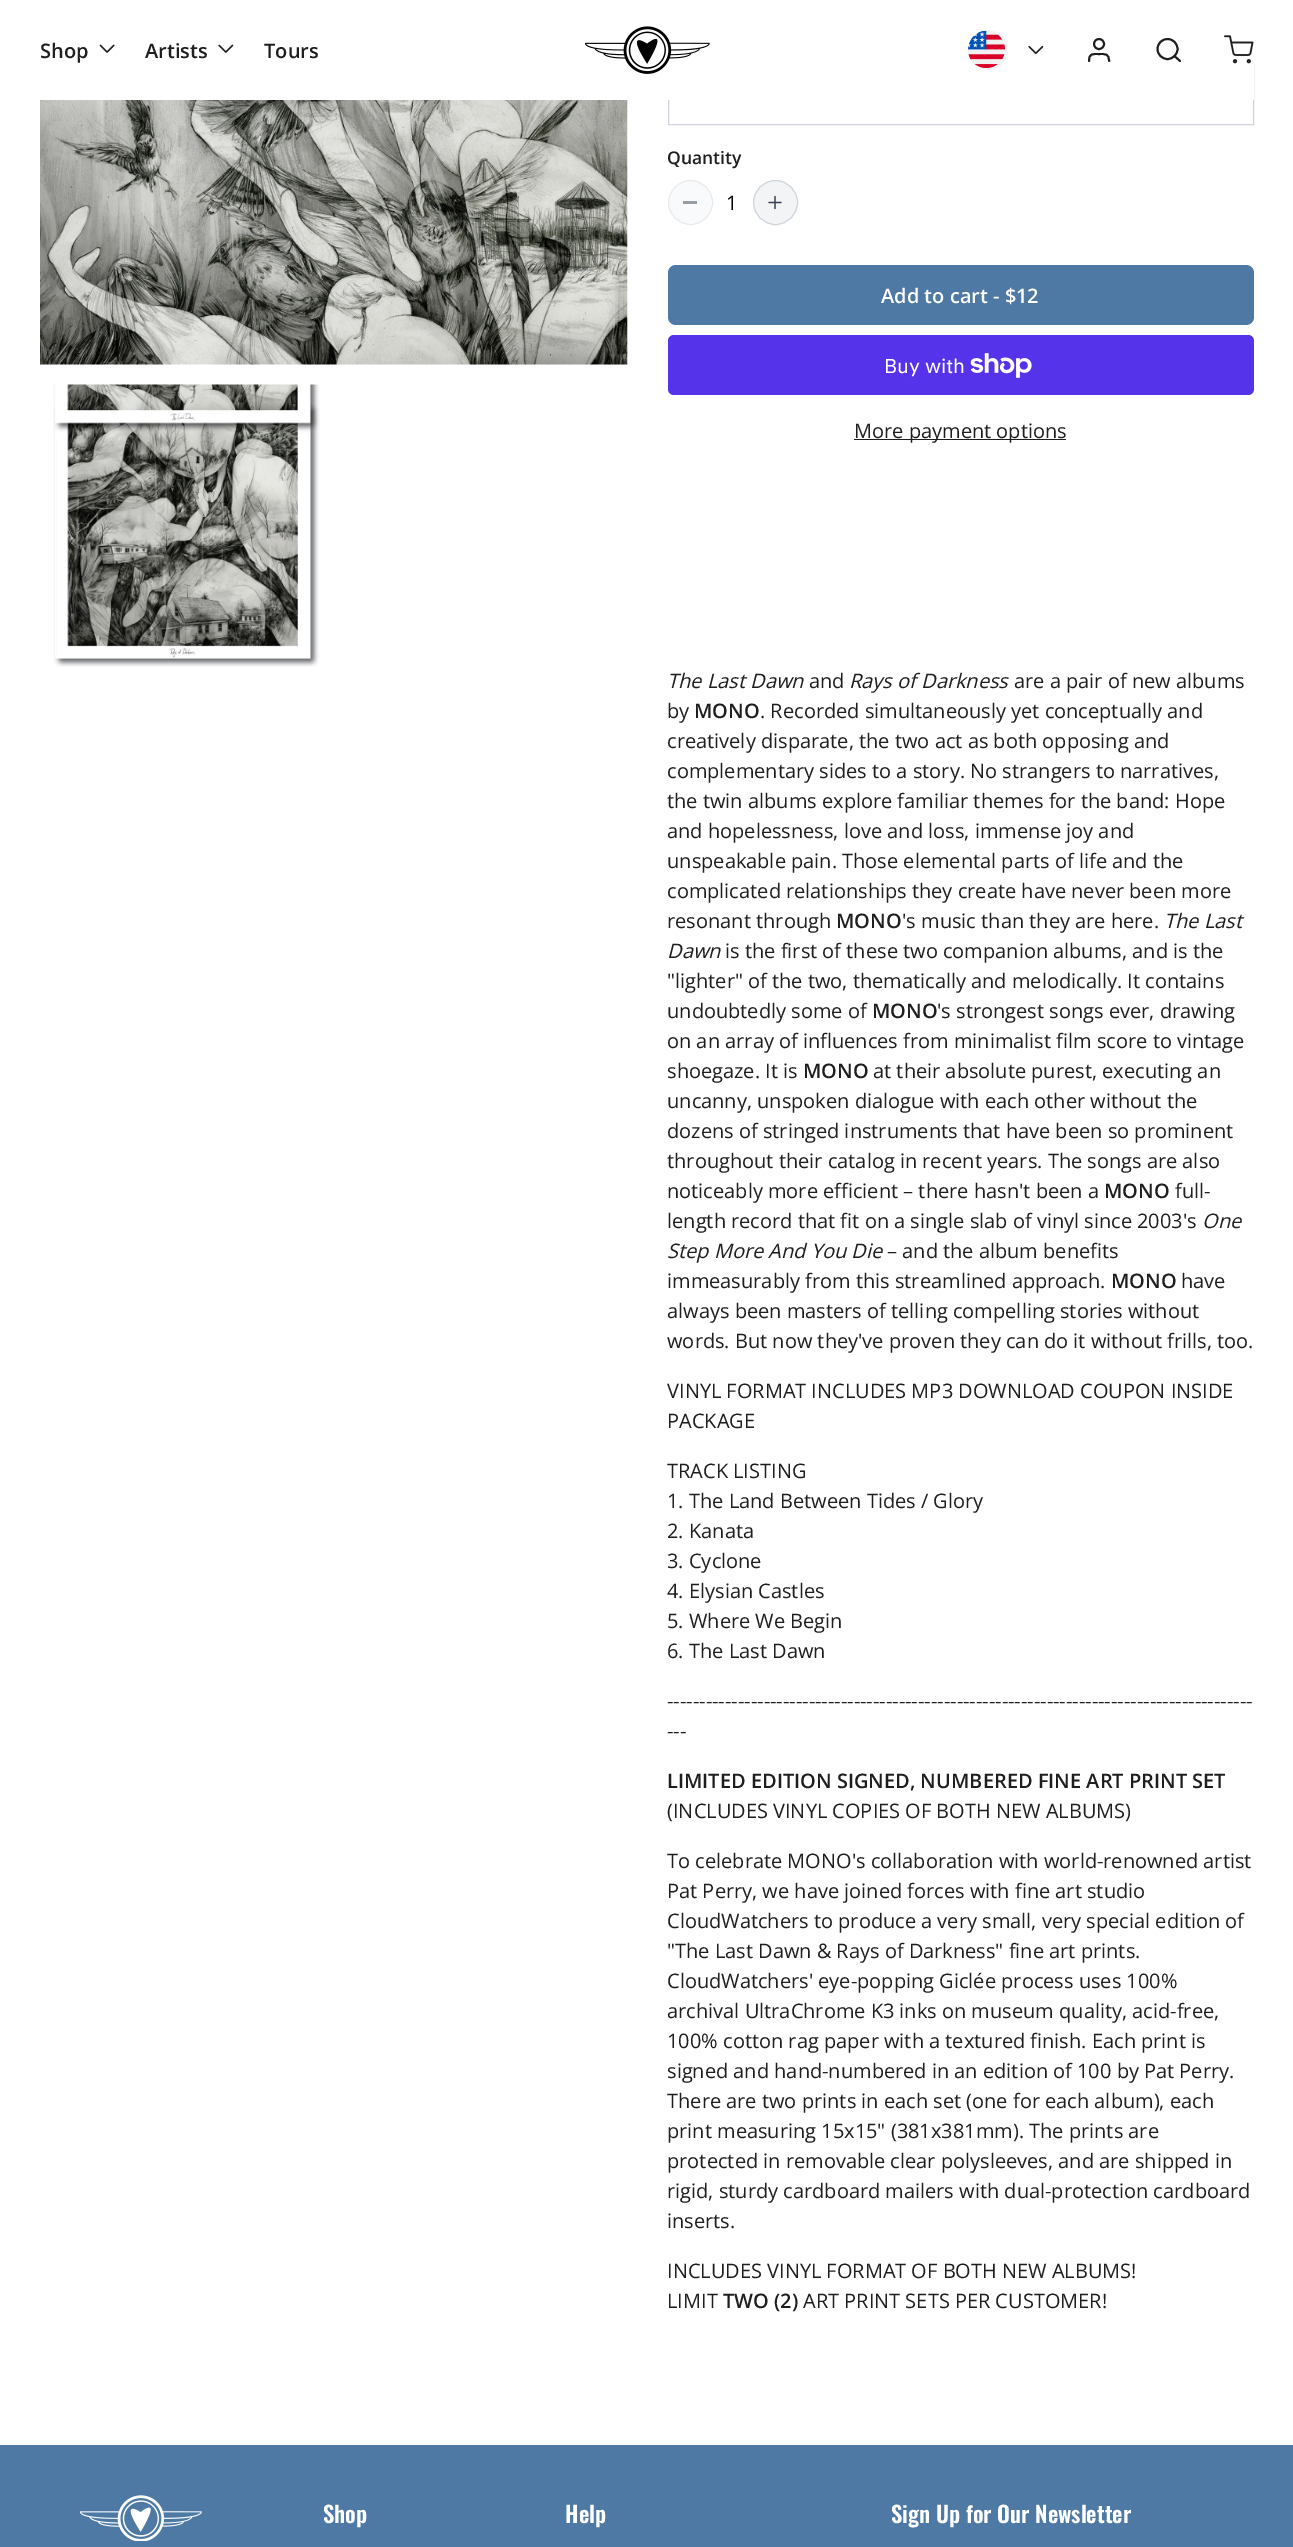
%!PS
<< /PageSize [1293 2547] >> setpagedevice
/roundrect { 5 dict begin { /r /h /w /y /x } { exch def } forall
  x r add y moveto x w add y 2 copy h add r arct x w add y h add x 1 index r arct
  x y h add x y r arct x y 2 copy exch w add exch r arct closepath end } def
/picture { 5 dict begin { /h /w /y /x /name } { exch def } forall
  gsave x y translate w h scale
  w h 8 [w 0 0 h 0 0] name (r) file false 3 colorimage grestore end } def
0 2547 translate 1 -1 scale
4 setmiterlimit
1 setgray
0 0 1293 2547 rectfill
0.82 0.835 0.859 setrgbcolor
668.5 63.5 585 61 rectstroke
1 setgray
668 63 586 37 rectfill
/OpenSans-SemiBold [20 0 0 -20 0 0] selectfont
0.118 setgray
40 58 moveto (Shop) show
(img1.rgb) 99 44 16 9 picture
145 58 moveto (Artists) show
(img2.rgb) 218 44 16 9 picture
264 58 moveto (Tours) show
(img3.rgb) 585 26 125 48 picture
0.953 0.957 0.965 setrgbcolor
newpath 988 50 20 0 360 arc closepath fill
(img4.rgb) 968 31 37 37 picture
(img5.rgb) 1028 45 16 10 picture
0.118 setgray
1.9 setlinewidth
1 setlinecap
1 setlinejoin
newpath 1109 61 moveto 1109 53.5 1105.5 54 1099 54 curveto 1092 54 1089 53.5 1089 61 curveto stroke
0 setlinecap
0 setlinejoin
newpath 1099 44 5 0 360 arc closepath stroke
newpath 1167.5 49 10 0 360 arc closepath stroke
1 setlinecap
1 setlinejoin
newpath 1180 61 moveto 1174.5 56 lineto stroke
(img6.rgb) 1224 35 30 29 picture
(img7.rgb) 40 100 588 265 picture
(img8.rgb) 53 384 267 283 picture
/OpenSans-SemiBold [17.5 0 0 -17.5 0 0] selectfont
667 164 moveto (Quantity) show
0.976 0.98 0.984 setrgbcolor
newpath 690.5 202.5 22 0 360 arc closepath gsave fill grestore
0.91 0.918 0.929 setrgbcolor
1 setlinewidth
0 setlinecap
0 setlinejoin
stroke
0.596 0.62 0.651 setrgbcolor
683 201 14 3 rectfill
/OpenSans-Regular [20 0 0 -20 0 0] selectfont
0 setgray
726 210 moveto (1) show
0.953 0.957 0.965 setrgbcolor
newpath 775.5 202.5 22 0 360 arc closepath gsave fill grestore
0.82 0.835 0.859 setrgbcolor
stroke
(img9.rgb) 768 195 14 15 picture
0.302 0.475 0.643 setrgbcolor
668 265 586 60 8 roundrect fill
/OpenSans-SemiBold [20 0 0 -20 0 0] selectfont
1 setgray
881 303 moveto (Add to cart - $12) show
0.329 0.2 0.922 setrgbcolor
668 335 586 60 6 roundrect fill
/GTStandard-Regular [20 0 0 -20 0 0] selectfont
1 setgray
884 373 moveto (Buy with) show
(img10.rgb) 970 353 62 25 picture
0.118 setgray
854 439 212 1 rectfill
/OpenSans-Regular [20 0 0 -20 0 0] selectfont
854 438 moveto (More payment options) show
/OpenSans-Italic [20 0 0 -20 0 0] selectfont
667 688 moveto (The Last Dawn) show
/OpenSans-Regular [20 0 0 -20 0 0] selectfont
809 688 moveto (and) show
/OpenSans-Italic [20 0 0 -20 0 0] selectfont
849 688 moveto (Rays of Darkness) show
/OpenSans-Regular [20 0 0 -20 0 0] selectfont
1014 688 moveto (are a pair of new albums) show
667 718 moveto (by) show
/OpenSans-SemiBold [20 0 0 -20 0 0] selectfont
694 718 moveto (MONO) show
/OpenSans-Regular [20 0 0 -20 0 0] selectfont
760 718 moveto (. Recorded simultaneously yet conceptually and) show
667 748 moveto (creatively disparate, the two act as both opposing and) show
667 778 moveto (complementary sides to a story. No strangers to narratives,) show
667 808 moveto (the twin albums explore familiar themes for the band: Hope) show
667 838 moveto (and hopelessness, love and loss, immense joy and) show
667 868 moveto (unspeakable pain. Those elemental parts of life and the) show
667 898 moveto (complicated relationships they create have never been more) show
667 928 moveto (resonant through) show
/OpenSans-SemiBold [20 0 0 -20 0 0] selectfont
836 928 moveto (MONO) show
/OpenSans-Regular [20 0 0 -20 0 0] selectfont
902 928 moveto ('s music than they are here.) show
/OpenSans-Italic [20 0 0 -20 0 0] selectfont
1164 928 moveto (The Last) show
667 958 moveto (Dawn) show
/OpenSans-Regular [20 0 0 -20 0 0] selectfont
725 958 moveto (is the first of these two companion albums, and is the) show
667 988 moveto ("lighter" of the two, thematically and melodically. It contains) show
667 1018 moveto (undoubtedly some of) show
/OpenSans-SemiBold [20 0 0 -20 0 0] selectfont
872 1018 moveto (MONO) show
/OpenSans-Regular [20 0 0 -20 0 0] selectfont
937 1018 moveto ('s strongest songs ever, drawing) show
667 1048 moveto (on an array of influences from minimalist film score to vintage) show
667 1078 moveto (shoegaze. It is) show
/OpenSans-SemiBold [20 0 0 -20 0 0] selectfont
803 1078 moveto (MONO) show
/OpenSans-Regular [20 0 0 -20 0 0] selectfont
873 1078 moveto (at their absolute purest, executing an) show
667 1108 moveto (uncanny, unspoken dialogue with each other without the) show
667 1138 moveto (dozens of stringed instruments that have been so prominent) show
667 1168 moveto (throughout their catalog in recent years. The songs are also) show
667 1198 moveto (noticeably more efficient – there hasn't been a) show
/OpenSans-SemiBold [20 0 0 -20 0 0] selectfont
1104 1198 moveto (MONO) show
/OpenSans-Regular [20 0 0 -20 0 0] selectfont
1175 1198 moveto (full-) show
667 1228 moveto (length record that fit on a single slab of vinyl since 2003's) show
/OpenSans-Italic [20 0 0 -20 0 0] selectfont
1202 1228 moveto (One) show
667 1258 moveto (Step More And You Die) show
/OpenSans-Regular [20 0 0 -20 0 0] selectfont
887 1258 moveto (– and the album benefits) show
667 1288 moveto (immeasurably from this streamlined approach.) show
/OpenSans-SemiBold [20 0 0 -20 0 0] selectfont
1111 1288 moveto (MONO) show
/OpenSans-Regular [20 0 0 -20 0 0] selectfont
1181 1288 moveto (have) show
667 1318 moveto (always been masters of telling compelling stories without) show
667 1348 moveto (words. But now they've proven they can do it without frills, too.) show
667 1398 moveto (VINYL FORMAT INCLUDES MP3 DOWNLOAD COUPON INSIDE) show
667 1428 moveto (PACKAGE) show
667 1478 moveto (TRACK LISTING) show
667 1508 moveto (1. The Land Between Tides / Glory) show
667 1538 moveto (2. Kanata) show
667 1568 moveto (3. Cyclone) show
667 1598 moveto (4. Elysian Castles) show
667 1628 moveto (5. Where We Begin) show
667 1658 moveto (6. The Last Dawn) show
667 1708 moveto (-------------------------------------------------------------------------------------------) show
667 1738 moveto (---) show
/OpenSans-SemiBold [20 0 0 -20 0 0] selectfont
667 1788 moveto (LIMITED EDITION SIGNED, NUMBERED FINE ART PRINT SET) show
/OpenSans-Regular [20 0 0 -20 0 0] selectfont
667 1818 moveto (\(INCLUDES VINYL COPIES OF BOTH NEW ALBUMS\)) show
667 1868 moveto (To celebrate MONO's collaboration with world-renowned artist) show
667 1898 moveto (Pat Perry, we have joined forces with fine art studio) show
667 1928 moveto (CloudWatchers to produce a very small, very special edition of) show
667 1958 moveto ("The Last Dawn & Rays of Darkness" fine art prints.) show
667 1988 moveto (CloudWatchers' eye-popping Giclée process uses 100%) show
667 2018 moveto (archival UltraChrome K3 inks on museum quality, acid-free,) show
667 2048 moveto (100% cotton rag paper with a textured finish. Each print is) show
667 2078 moveto (signed and hand-numbered in an edition of 100 by Pat Perry.) show
667 2108 moveto (There are two prints in each set \(one for each album\), each) show
667 2138 moveto (print measuring 15x15" \(381x381mm\). The prints are) show
667 2168 moveto (protected in removable clear polysleeves, and are shipped in) show
667 2198 moveto (rigid, sturdy cardboard mailers with dual-protection cardboard) show
667 2228 moveto (inserts.) show
667 2278 moveto (INCLUDES VINYL FORMAT OF BOTH NEW ALBUMS!) show
667 2308 moveto (LIMIT) show
/OpenSans-SemiBold [20 0 0 -20 0 0] selectfont
723 2308 moveto (TWO \(2\)) show
/OpenSans-Regular [20 0 0 -20 0 0] selectfont
803 2308 moveto (ART PRINT SETS PER CUSTOMER!) show
0.302 0.475 0.643 setrgbcolor
0 2445 1293 102 rectfill
(img11.rgb) 80 2495 122 46 picture
/Oswald-SemiBold [22.5 0 0 -22.5 0 0] selectfont
1 setgray
323 2523 moveto (Shop) show
565 2523 moveto (Help) show
891 2523 moveto (Sign Up for Our Newsletter) show
showpage
